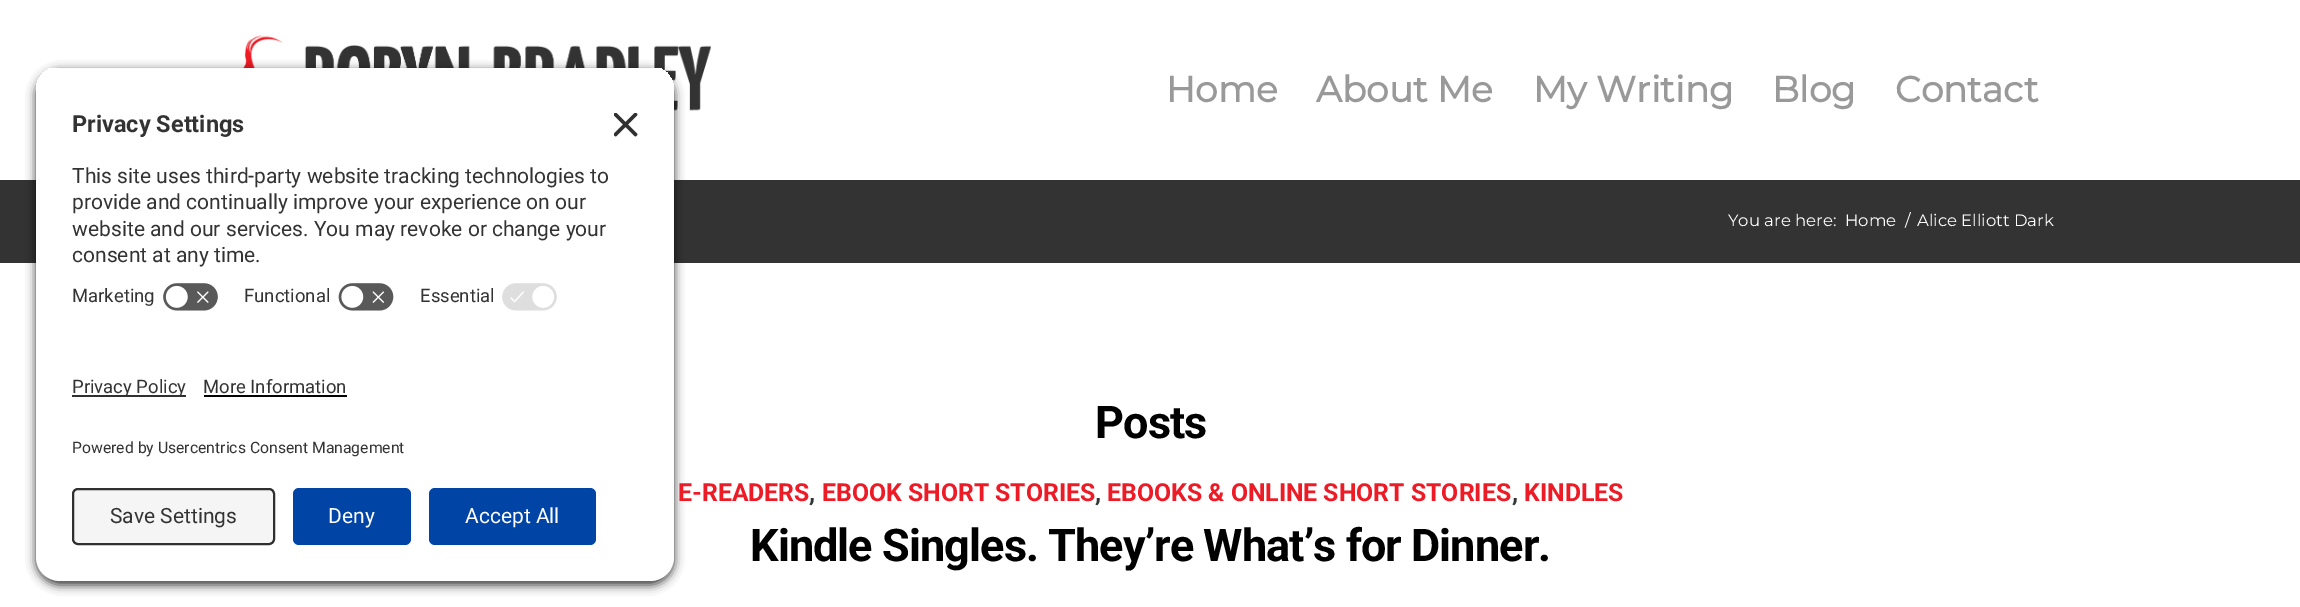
%!PS
<< /PageSize [2300 607] /PageUsesTransparency true >> setpagedevice
/alpha { dup .setfillconstantalpha .setstrokeconstantalpha } def
/roundrect { 5 dict begin { /r /h /w /y /x } { exch def } forall
  x r add y moveto x w add y 2 copy h add r arct x w add y h add x 1 index r arct
  x y h add x y r arct x y 2 copy exch w add exch r arct closepath end } def
/shadow { 12 dict begin { /a /b /q /h /w /y /x } { exch def } forall gsave /was 0 def
  9 -2 -9 { dup b mul 4 div /e exch def 1 sub .425 mul 2.718 exch exp 1 add a .99 .min exch div /now exch def
    1 1 now sub 1 was sub div sub alpha /was now def
    w h .min e 2 mul add 0 gt { x e sub y e sub w e 2 mul add h e 2 mul add
      q e add b .6 mul add w h .min 2 div e add .min 0 .max roundrect fill } if } for grestore end } def
/picture { 5 dict begin { /h /w /y /x /name } { exch def } forall
  gsave x y translate w h scale
  w h 8 [w 0 0 h 0 0] name (r) file false 3 colorimage grestore end } def
0 .pushpdf14devicefilter
0 607 translate 1 -1 scale
4 setmiterlimit
1 setgray
0 0 2300 607 rectfill
(img5.rgb) 243 35 468 76 picture
0.2 setgray
0 180 2300 83 rectfill
0 setgray
36 71 638 514 24 5 0.8 shadow
gsave
newpath 60 66 moveto 650 66 lineto 663.5 66 674 76.5 674 90 curveto 674 335 lineto 36 335 lineto 36 90 lineto 36 76.5 46.5 66 60 66 curveto closepath clip newpath
1 setgray
36 68 638 267 rectfill
36 68 638 207 rectfill
grestore
/Roboto-Bold [23.5 0 0 -23.5 0 0] selectfont
0.2 setgray
72 132 moveto (Privacy Settings) show
(img1.rgb) 614 113 24 24 picture
/Roboto-Regular [21 0 0 -21 0 0] selectfont
72 183 moveto (This site uses third-party website tracking technologies to) show
72 209 moveto (provide and continually improve your experience on our) show
72 236 moveto (website and our services. You may revoke or change your) show
72 262 moveto (consent at any time.) show
/Roboto-Regular [18.5 0 0 -18.5 0 0] selectfont
72 302 moveto (Marketing) show
(img2.rgb) 163 283 55 28 picture
244 302 moveto (Functional) show
(img3.rgb) 338 283 56 28 picture
420 302 moveto (Essential) show
(img4.rgb) 502 283 55 28 picture
1 setgray
newpath 36 335 moveto 674 335 lineto 674 557 lineto 674 570.5 663.5 581 650 581 curveto 60 581 lineto 46.5 581 36 570.5 36 557 curveto closepath fill
0.188 setgray
72 395 114 2 rectfill
0.2 setgray
72 393 moveto (Privacy Policy) show
203 393 moveto (More Information) show
0 setgray
204 395 143 2 rectfill
/Roboto-Regular [15.75 0 0 -15.75 0 0] selectfont
0.2 setgray
72 453 moveto (Powered by Usercentrics Consent Management) show
0.961 setgray
73 489 201 55 5 roundrect gsave fill grestore
0.188 setgray
2 setlinewidth
stroke
/Roboto-Regular [21 0 0 -21 0 0] selectfont
0.2 setgray
110 523 moveto (Save Settings) show
0 0.271 0.647 setrgbcolor
293 488 118 57 6 roundrect fill
1 setgray
328 523 moveto (Deny) show
0 0.271 0.647 setrgbcolor
429 488 167 57 6 roundrect fill
1 setgray
465 523 moveto (Accept All) show
/Montserrat-Bold [36 0 0 -36 0 0] selectfont
0.6 setgray
1166 102 moveto (Home) show
1316 102 moveto (About Me) show
1533 102 moveto (My Writing) show
1772 102 moveto (Blog) show
1895 102 moveto (Contact) show
/Montserrat-Thin [16.5 0 0 -16.5 0 0] selectfont
1 setgray
1728 226 moveto (You are here:) show
1845 226 moveto (Home) show
1905 226 moveto (/) show
1917 226 moveto (Alice Elliott Dark) show
/Roboto-Bold [45 0 0 -45 0 0] selectfont
0 setgray
1095 438 moveto -0.9 0 (Posts) ashow
/Roboto-Bold [24.8 0 0 -24.8 0 0] selectfont
0.929 0.106 0.145 setrgbcolor
678 501 moveto (E-READERS) show
0.2 setgray
809 501 moveto (,) show
0.929 0.106 0.145 setrgbcolor
822 501 moveto (EBOOK SHORT STORIES) show
0.2 setgray
1095 501 moveto (,) show
0.929 0.106 0.145 setrgbcolor
1107 501 moveto (EBOOKS & ONLINE SHORT STORIES) show
0.2 setgray
1512 501 moveto (,) show
0.929 0.106 0.145 setrgbcolor
1524 501 moveto (KINDLES) show
/Roboto-Bold [45 0 0 -45 0 0] selectfont
0 setgray
750 561 moveto -0.9 0 (Kindle Singles. They’re What’s for Dinner.) ashow
.poppdf14devicefilter showpage
